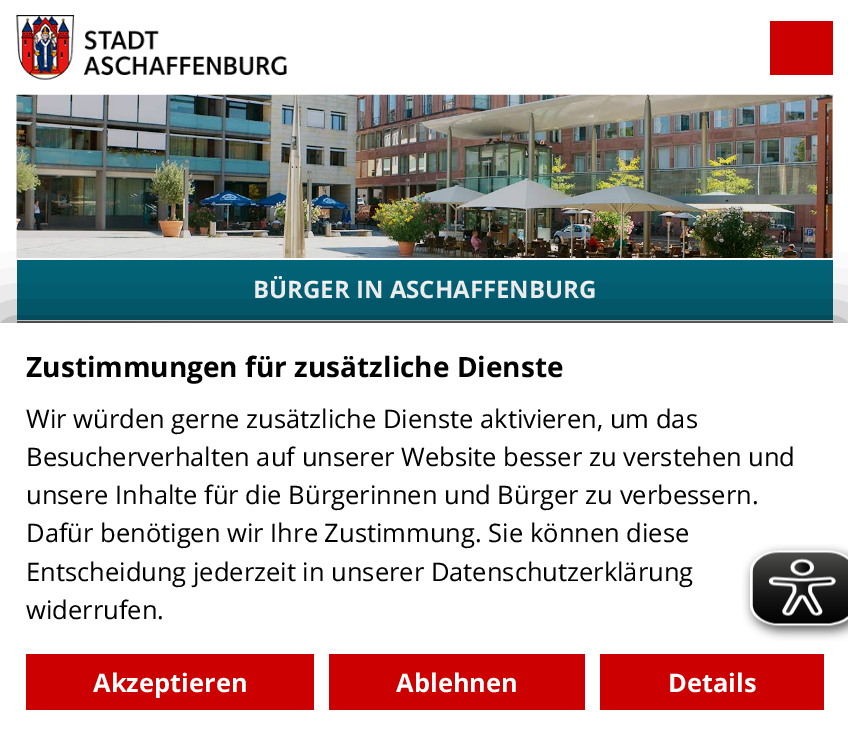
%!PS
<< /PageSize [848 734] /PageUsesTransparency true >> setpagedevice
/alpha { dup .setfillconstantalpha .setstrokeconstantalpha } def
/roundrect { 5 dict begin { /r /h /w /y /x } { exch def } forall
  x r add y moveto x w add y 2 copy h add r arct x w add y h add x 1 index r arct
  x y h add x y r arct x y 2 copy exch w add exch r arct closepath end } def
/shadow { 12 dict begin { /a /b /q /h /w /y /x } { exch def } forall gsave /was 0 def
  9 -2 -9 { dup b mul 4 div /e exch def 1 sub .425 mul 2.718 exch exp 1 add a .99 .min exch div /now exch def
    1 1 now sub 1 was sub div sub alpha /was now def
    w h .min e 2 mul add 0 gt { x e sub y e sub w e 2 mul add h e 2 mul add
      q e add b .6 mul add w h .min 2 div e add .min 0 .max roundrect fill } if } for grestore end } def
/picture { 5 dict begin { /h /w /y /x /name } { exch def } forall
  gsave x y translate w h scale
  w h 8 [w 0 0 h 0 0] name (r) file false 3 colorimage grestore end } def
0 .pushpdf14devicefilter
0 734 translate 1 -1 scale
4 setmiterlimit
1 setgray
0 0 848 734 rectfill
(img1.rgb) 16 15 271 65 picture
0.898 0.882 0.871 setrgbcolor
832 95 1 163 rectfill
(img2.rgb) 16 94 817 164 picture
0.8 0 0 setrgbcolor
770 21 63 54 rectfill
0.012 0.396 0.478 setrgbcolor
17 260 816 60 rectfill
/OpenSans-Bold [24 0 0 -24 0 0] selectfont
1 setgray
253 298 moveto (BÜRGER IN ASCHAFFENBURG) show
gsave newpath 17 321 moveto 833 321 lineto 833 323 lineto 17 323 lineto closepath clip newpath
<< /ShadingType 2 /ColorSpace /DeviceRGB /Coords [206 570 644 132] /Extend [true true] /Function << /FunctionType 3 /Domain [0 1] /Functions [<< /FunctionType 2 /Domain [0 1] /C0 [0.376 0.376 0.376] /C1 [0.455 0.455 0.455] /N 1 >> << /FunctionType 2 /Domain [0 1] /C0 [0.455 0.455 0.455] /C1 [0.455 0.455 0.455] /N 1 >>] /Bounds [0.27] /Encode [0 1 0 1] >> >> shfill grestore
0 setgray
0 323 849 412 0 32 0.5 shadow
1 setgray
0 323 848 411 rectfill
/OpenSans-Bold [28 0 0 -28 0 0] selectfont
0 setgray
26 377 moveto (Zustimmungen für zusätzliche Dienste) show
/OpenSans-Regular [25.5 0 0 -25.5 0 0] selectfont
26 428 moveto (Wir würden gerne zusätzliche Dienste aktivieren, um das) show
26 466 moveto (Besucherverhalten auf unserer Website besser zu verstehen und) show
26 504 moveto (unsere Inhalte für die Bürgerinnen und Bürger zu verbessern.) show
26 542 moveto (Dafür benötigen wir Ihre Zustimmung. Sie können diese) show
26 581 moveto (Entscheidung jederzeit in unserer Datenschutzerklärung) show
26 619 moveto (widerrufen.) show
0.8 0 0 setrgbcolor
26 654 288 56 rectfill
/OpenSans-Bold [25.5 0 0 -25.5 0 0] selectfont
1 setgray
93 692 moveto (Akzeptieren) show
0.8 0 0 setrgbcolor
329 654 256 56 rectfill
1 setgray
396 692 moveto (Ablehnen) show
0.8 0 0 setrgbcolor
600 654 224 56 rectfill
1 setgray
668 692 moveto (Details) show
(img3.rgb) 742 544 106 97 picture
.poppdf14devicefilter showpage
